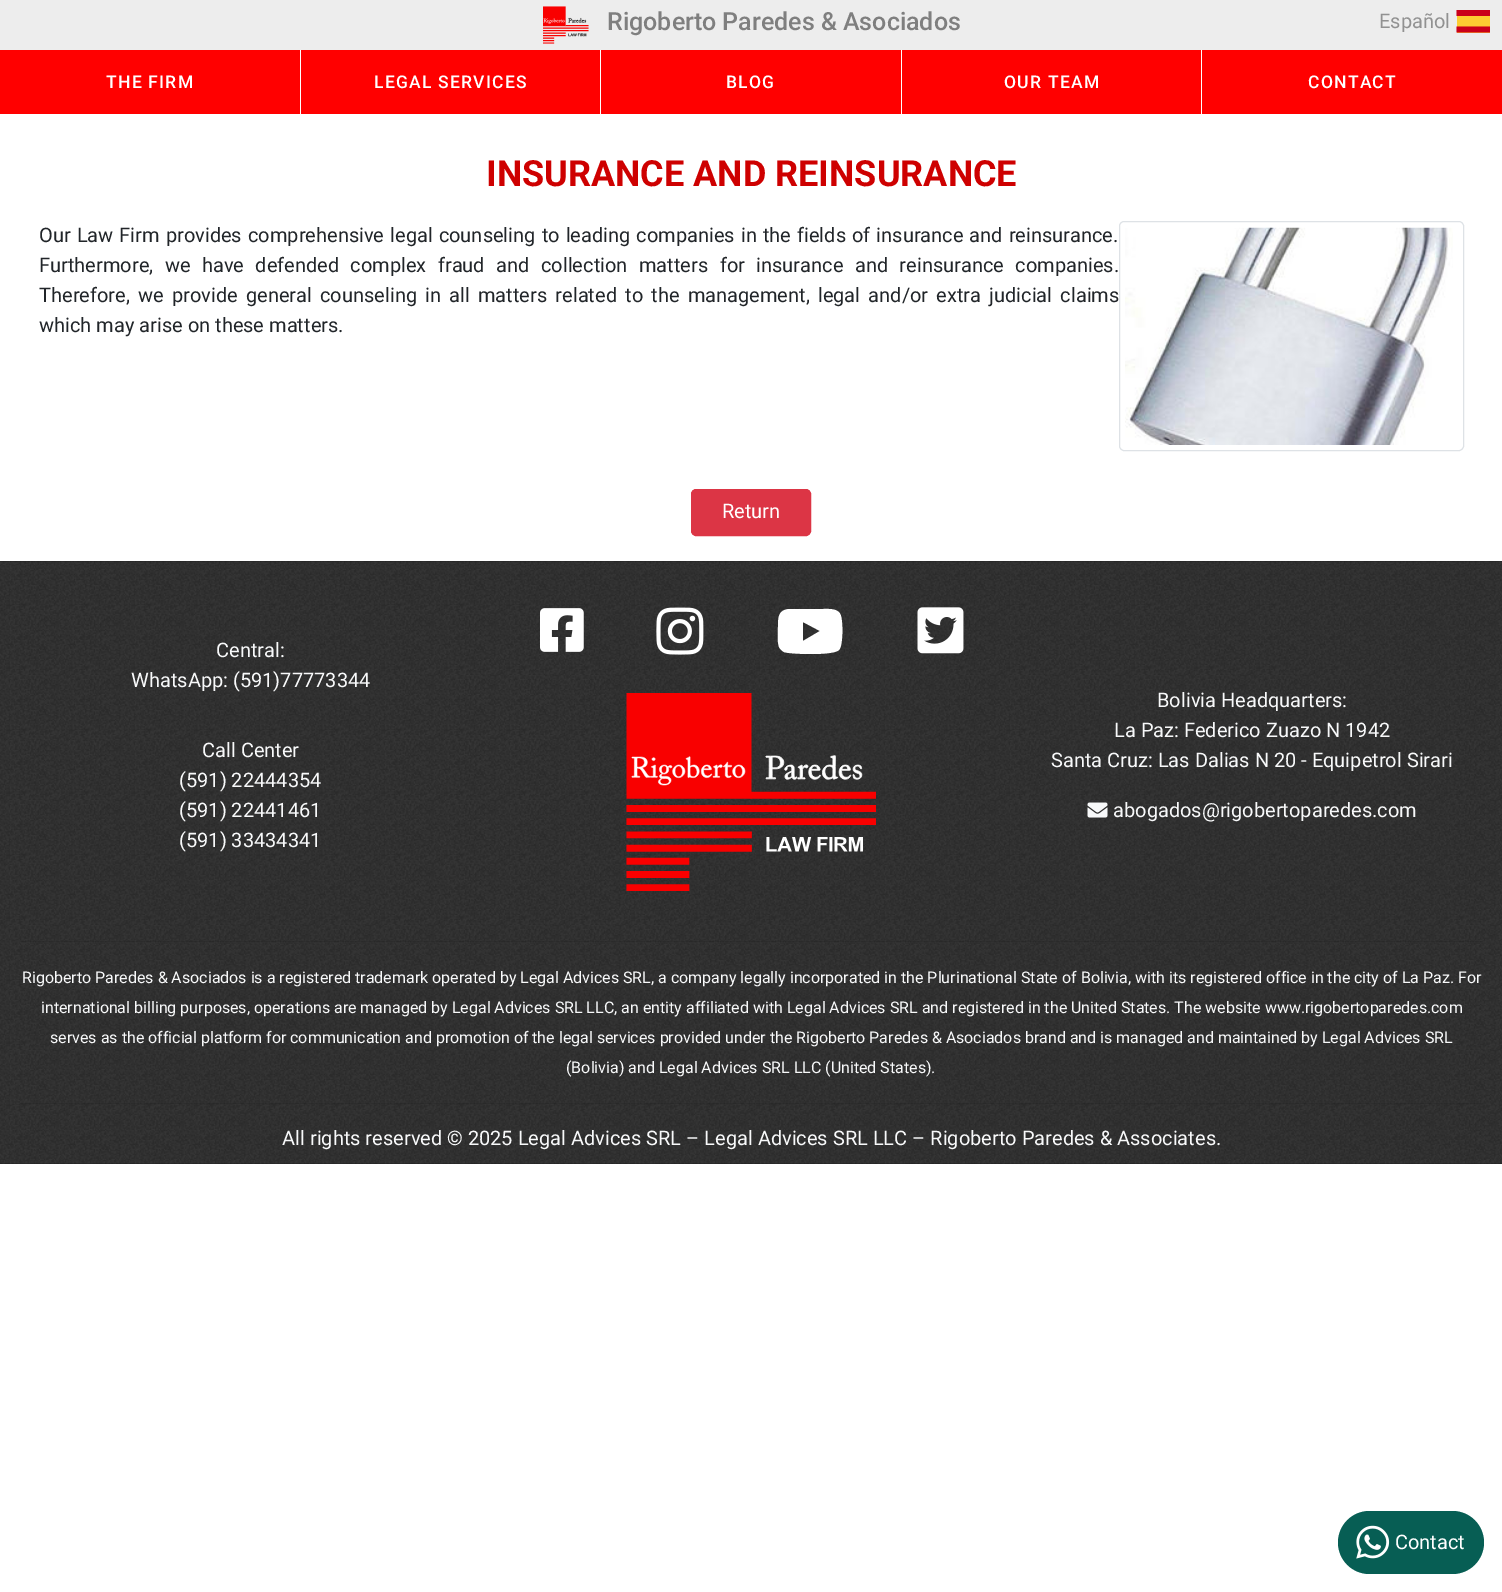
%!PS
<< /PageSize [1502 1592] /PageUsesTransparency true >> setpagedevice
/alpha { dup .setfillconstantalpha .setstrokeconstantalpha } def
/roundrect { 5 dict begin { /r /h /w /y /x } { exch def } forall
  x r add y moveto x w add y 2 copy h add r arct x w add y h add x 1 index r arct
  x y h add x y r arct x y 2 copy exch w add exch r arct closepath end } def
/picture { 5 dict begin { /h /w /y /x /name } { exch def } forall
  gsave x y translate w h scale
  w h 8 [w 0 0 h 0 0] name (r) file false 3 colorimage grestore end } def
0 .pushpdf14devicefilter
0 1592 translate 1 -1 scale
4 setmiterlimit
1 setgray
0 0 1502 1592 rectfill
0.929 setgray
0 0 1502 50 rectfill
(img1.rgb) 543 6 46 38 picture
/Roboto-Medium [25 0 0 -25 0 0] selectfont
0.498 setgray
607 30 moveto (Rigoberto Paredes & Asociados) show
/Roboto-Regular [20 0 0 -20 0 0] selectfont
0.569 setgray
1379 28 moveto (Español) show
0.992 0.804 0.196 setrgbcolor
1457 16 33 17 rectfill
0.792 0 0.102 setrgbcolor
newpath 1456.5 26.5 moveto 1490 26.5 lineto 1490 32.5 lineto 1456.5 32.5 lineto closepath 1456.5 10 moveto 1490 10 lineto 1490 16 lineto 1456.5 16 lineto closepath fill
1 0 0 setrgbcolor
0 50 300 64 rectfill
/Roboto-Medium [17.5 0 0 -17.5 0 0] selectfont
1 setgray
106 88 moveto 1.25 0 (THE FIRM) ashow
1 0 0 setrgbcolor
301 50 299 64 rectfill
1 setgray
374 88 moveto 1.25 0 (LEGAL SERVICES) ashow
1 0 0 setrgbcolor
601 50 901 64 rectfill
1 setgray
901 50 1 65 rectfill
726 88 moveto 1.25 0 (BLOG) ashow
1201 50 1 65 rectfill
1004 88 moveto 1.25 0 (OUR TEAM) ashow
1308 88 moveto 1.25 0 (CONTACT) ashow
/Roboto-Bold [36 0 0 -36 0 0] selectfont
0.808 0 0 setrgbcolor
486 186 moveto (INSURANCE AND REINSURANCE) show
/Roboto-Regular [20 0 0 -20 0 0] selectfont
0.129 0.145 0.161 setrgbcolor
39 242 moveto 1.1 0 32 (Our Law Firm provides comprehensive legal counseling to leading companies in the fields of insurance and reinsurance.) widthshow
39 272 moveto 6.5 0 32 (Furthermore, we have defended complex fraud and collection matters for insurance and reinsurance companies.) widthshow
39 302 moveto 3.25 0 32 (Therefore, we provide general counseling in all matters related to the management, legal and/or extra judicial claims) widthshow
39 332 moveto (which may arise on these matters.) show
0.871 0.886 0.902 setrgbcolor
1119.5 221.5 344 229 4.5 roundrect stroke
(img2.rgb) 1125 227 328 218 picture
0.863 0.208 0.271 setrgbcolor
691.5 489.5 119 46 4.5 roundrect gsave fill grestore
stroke
1 setgray
722 518 moveto (Return) show
0.082 setgray
0 561 1502 603 rectfill
(img3.rgb) 0 561 1502 603 picture
0.973 0.976 0.98 setrgbcolor
216 657 moveto (Central:) show
131 687 moveto (WhatsApp: \(591\)77773344) show
202 757 moveto (Call Center) show
179 787 moveto (\(591\) 22444354) show
179 817 moveto (\(591\) 22441461) show
179 847 moveto (\(591\) 33434341) show
(img4.rgb) 540 608 44 44 picture
(img5.rgb) 656 607 48 48 picture
1 setgray
newpath 841 616 moveto 843 623 843 646 839 650 curveto 833 656 788 654 784 652 curveto 782 651 780 649 779 647 curveto 777 641 778 633 778 626 curveto 778 616 779 610 789 609 curveto 804 609 lineto 823 609 lineto 829 609 839 608 841 616 curveto closepath 803 641 moveto 820 631 lineto 803 622 lineto closepath fill
(img6.rgb) 917 607 47 47 picture
(img7.rgb) 626 693 250 198 picture
0.973 0.976 0.98 setrgbcolor
1157 707 moveto (Bolivia Headquarters:) show
1114 737 moveto (La Paz: Federico Zuazo N 1942) show
1051 767 moveto (Santa Cruz: Las Dalias N 20 - Equipetrol Sirari) show
(img8.rgb) 1087 802 21 16 picture
1113 817 moveto (abogados@rigobertoparedes.com) show
0.1 alpha
0 setgray
20 941 1463 1 rectfill
/Roboto-Regular [16 0 0 -16 0 0] selectfont
1 alpha
0.973 0.976 0.98 setrgbcolor
22 983 moveto (Rigoberto Paredes & Asociados is a registered trademark operated by Legal Advices SRL, a company legally incorporated in the Plurinational State of Bolivia, with its registered office in the city of La Paz. For) show
41 1013 moveto (international billing purposes, operations are managed by Legal Advices SRL LLC, an entity affiliated with Legal Advices SRL and registered in the United States. The website www.rigobertoparedes.com) show
50 1043 moveto (serves as the official platform for communication and promotion of the legal services provided under the Rigoberto Paredes & Asociados brand and is managed and maintained by Legal Advices SRL) show
566 1073 moveto (\(Bolivia\) and Legal Advices SRL LLC \(United States\).) show
0.1 alpha
0 setgray
20 1103 1463 1 rectfill
/Roboto-Regular [20 0 0 -20 0 0] selectfont
1 alpha
0.973 0.976 0.98 setrgbcolor
282 1145 moveto (All rights reserved © 2025 Legal Advices SRL – Legal Advices SRL LLC – Rigoberto Paredes & Associates.) show
0.027 0.369 0.329 setrgbcolor
1338 1511 146 63 31.5 roundrect fill
(img9.rgb) 1356 1525 34 34 picture
1 setgray
1395 1549 moveto (Contact) show
.poppdf14devicefilter showpage
